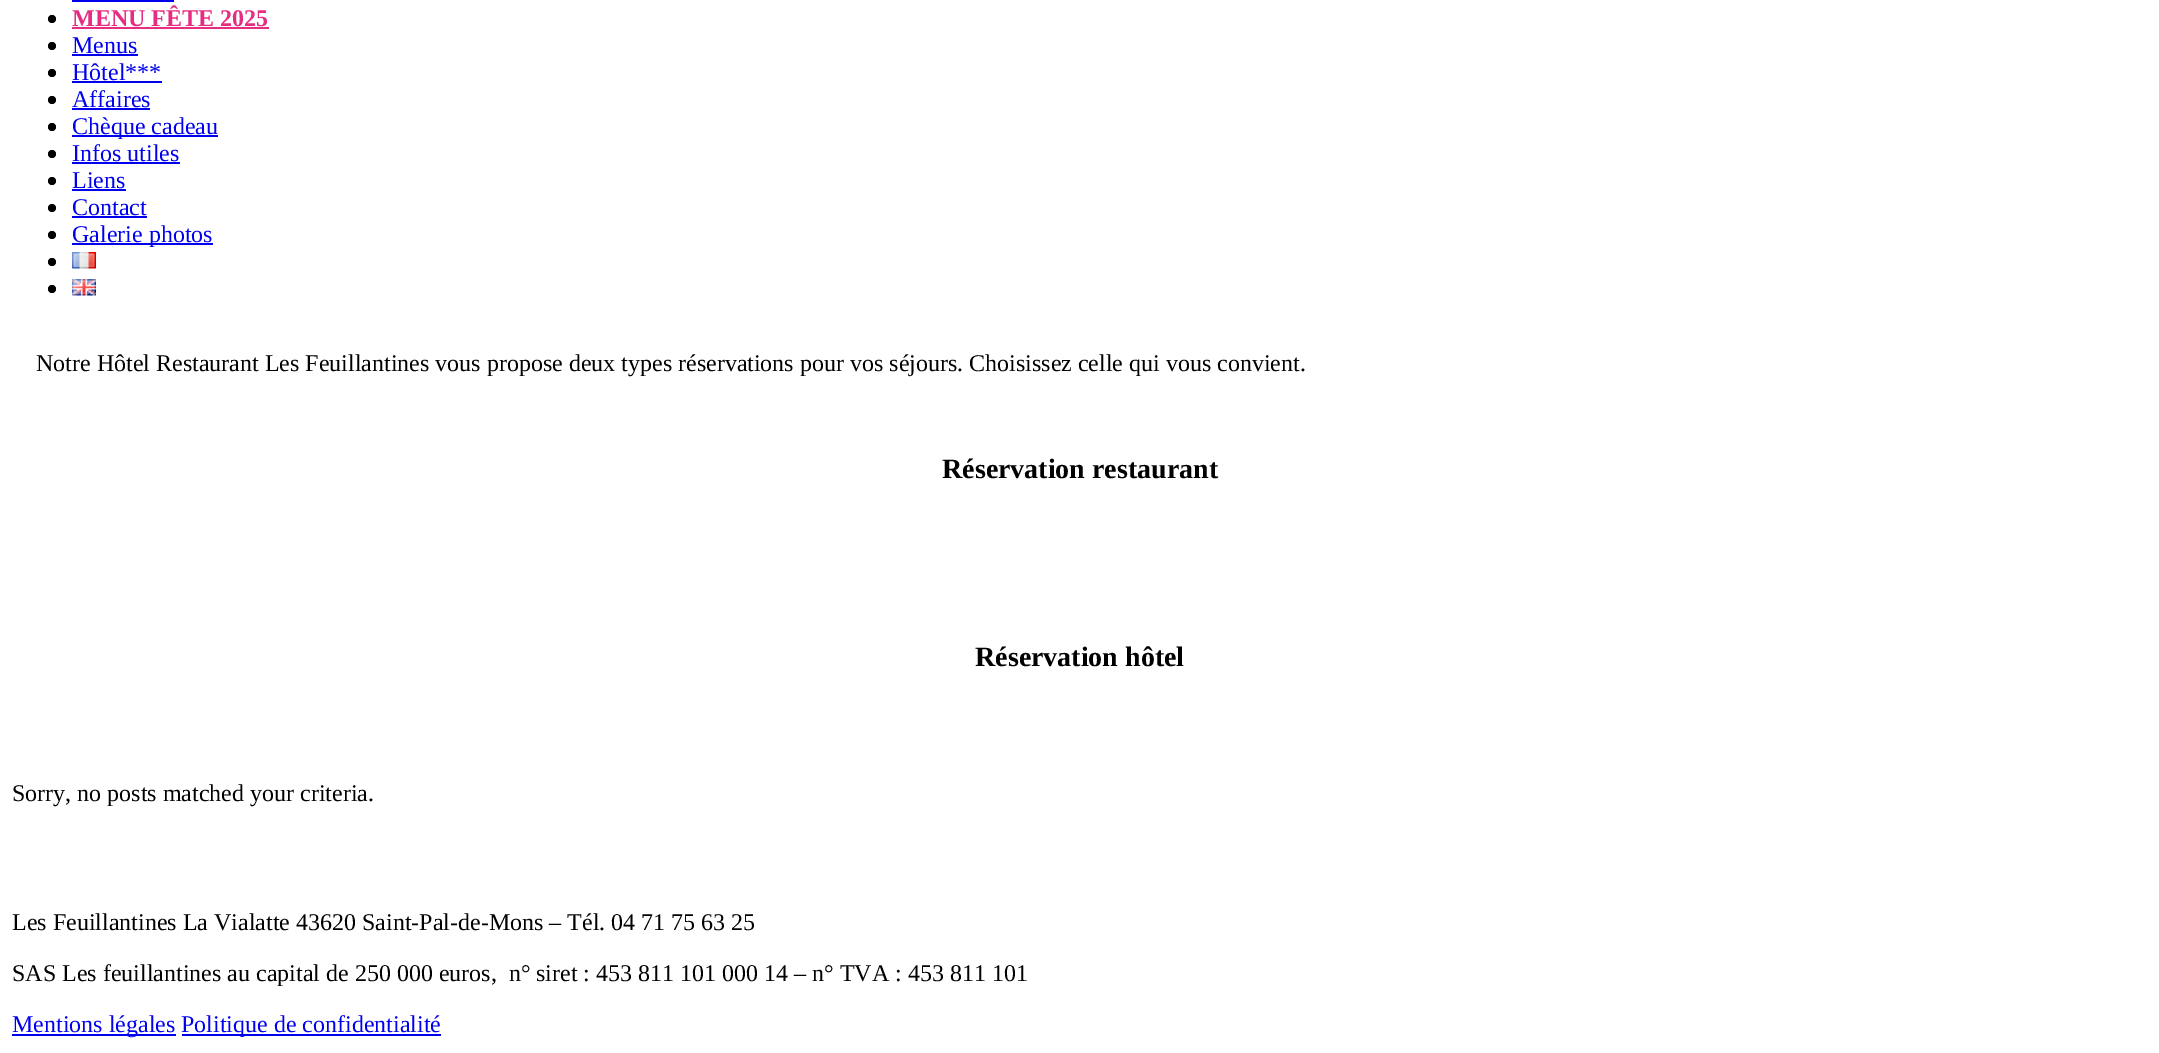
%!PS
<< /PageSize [2159 1053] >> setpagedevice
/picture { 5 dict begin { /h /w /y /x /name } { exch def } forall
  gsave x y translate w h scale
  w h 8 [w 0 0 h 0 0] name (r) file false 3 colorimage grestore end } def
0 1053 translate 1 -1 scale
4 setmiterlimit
1 setgray
0 0 2159 1053 rectfill
0 0 0.933 setrgbcolor
72 0 102 2 rectfill
0 setgray
newpath 52 19 4 0 360 arc closepath fill
/LiberationSerif-Bold [24 0 0 -24 0 0] selectfont
0.902 0.176 0.506 setrgbcolor
72 26 moveto (MENU FÊTE 2025) show
72 27 197 2 rectfill
0 setgray
newpath 52 46 4 0 360 arc closepath fill
/LiberationSerif-Regular [24 0 0 -24 0 0] selectfont
0 0 0.933 setrgbcolor
72 53 moveto (Menus) show
72 54 66 2 rectfill
0 setgray
newpath 52 73 4 0 360 arc closepath fill
0 0 0.933 setrgbcolor
72 80 moveto (Hôtel***) show
72 81 90 2 rectfill
0 setgray
newpath 52 100 4 0 360 arc closepath fill
0 0 0.933 setrgbcolor
72 107 moveto (Affaires) show
72 108 78 2 rectfill
0 setgray
newpath 52 127 4 0 360 arc closepath fill
0 0 0.933 setrgbcolor
72 135 146 2 rectfill
72 134 moveto (Chèque cadeau) show
0 setgray
newpath 52 154 4 0 360 arc closepath fill
0 0 0.933 setrgbcolor
72 161 moveto (Infos utiles) show
72 162 108 2 rectfill
0 setgray
newpath 52 181 4 0 360 arc closepath fill
0 0 0.933 setrgbcolor
72 188 moveto (Liens) show
72 189 54 2 rectfill
0 setgray
newpath 52 208 4 0 360 arc closepath fill
0 0 0.933 setrgbcolor
72 215 moveto (Contact) show
72 216 75 2 rectfill
0 setgray
newpath 52 235 4 0 360 arc closepath fill
0 0 0.933 setrgbcolor
72 243 141 2 rectfill
72 242 moveto (Galerie photos) show
0 setgray
newpath 52 262 4 0 360 arc closepath fill
(img1.rgb) 72 252 24 17 picture
newpath 52 289 4 0 360 arc closepath fill
(img2.rgb) 72 279 24 17 picture
36 371 moveto (Notre Hôtel Restaurant Les Feuillantines vous propose deux types réservations pour vos séjours. Choisissez celle qui vous convient.) show
/LiberationSerif-Bold [28 0 0 -28 0 0] selectfont
942 478 moveto (Réservation restaurant) show
975 666 moveto (Réservation hôtel) show
/LiberationSerif-Regular [24 0 0 -24 0 0] selectfont
12 801 moveto (Sorry, no posts matched your criteria.) show
12 930 moveto (Les Feuillantines La Vialatte 43620 Saint-Pal-de-Mons – Tél. 04 71 75 63 25) show
12 981 moveto (SAS Les feuillantines au capital de 250 000 euros,  n° siret : 453 811 101 000 14 – n° TVA : 453 811 101) show
0 0 0.933 setrgbcolor
12 1034 164 2 rectfill
12 1032 moveto (Mentions légales) show
182 1034 259 2 rectfill
181 1032 moveto (Politique de confidentialité) show
showpage
